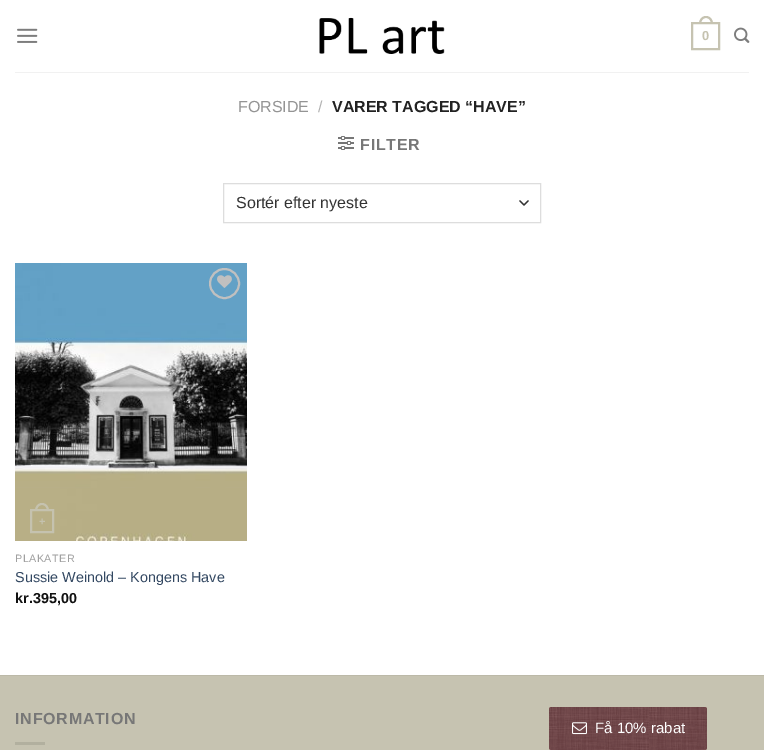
%!PS
<< /PageSize [764 750] >> setpagedevice
/roundrect { 5 dict begin { /r /h /w /y /x } { exch def } forall
  x r add y moveto x w add y 2 copy h add r arct x w add y h add x 1 index r arct
  x y h add x y r arct x y 2 copy exch w add exch r arct closepath end } def
/picture { 5 dict begin { /h /w /y /x /name } { exch def } forall
  gsave x y translate w h scale
  w h 8 [w 0 0 h 0 0] name (r) file false 3 colorimage grestore end } def
0 750 translate 1 -1 scale
4 setmiterlimit
1 setgray
0 0 764 750 rectfill
(img1.rgb) 17 28 21 15 picture
(img2.rgb) 319 17 126 37 picture
0.776 0.765 0.694 setrgbcolor
2 setlinewidth
692 23 27 26 rectstroke
newpath 706 16 moveto 710.5 16 713 20 713 24 curveto 699 24 lineto 699 20 701.5 16 706 16 curveto closepath 706 18 moveto 709.5 18 711 21 711 24 curveto 701 24 lineto 701 21 702.5 18 706 18 curveto closepath eofill
/LiberationSans-Bold [13 0 0 -13 0 0] selectfont
0.773 0.761 0.686 setrgbcolor
702 40 moveto (0) show
(img3.rgb) 734 27 16 16 picture
0.945 setgray
15 72 734 1 rectfill
/LiberationSans-Regular [16 0 0 -16 0 0] selectfont
0.58 setgray
238 112 moveto (FORSIDE) show
0.698 setgray
318 112 moveto (/) show
/LiberationSans-Bold [16 0 0 -16 0 0] selectfont
0.133 setgray
332 112 moveto (VARER TAGGED “HAVE”) show
(img4.rgb) 338 136 16 14 picture
0.467 setgray
360 150 moveto 0.75 0 (FILTER) ashow
0.2 setgray
1.3 setlinewidth
1 setlinecap
1 setlinejoin
newpath 520 201 moveto 524 205 lineto 528 201 lineto stroke
0.867 setgray
1 setlinewidth
0 setlinecap
0 setlinejoin
223.5 183.5 317 39 rectstroke
/LiberationSans-Regular [16 0 0 -16 0 0] selectfont
0.2 setgray
236 208 moveto (Sortér efter nyeste) show
(img5.rgb) 15 263 232 278 picture
0.753 setgray
2 setlinewidth
newpath 224.5 283.5 14.5 0 360 arc closepath stroke
(img6.rgb) 217 275 15 13 picture
0.773 0.761 0.686 setrgbcolor
31 510 22 22 rectstroke
newpath 42 503 moveto 46.5 503 49 507 49 511 curveto 35 511 lineto 35 507 37.5 503 42 503 curveto closepath 42 505 moveto 45.5 505 47 508 47 511 curveto 37 511 lineto 37 508 38.5 505 42 505 curveto closepath eofill
/LiberationSans-Bold [11 0 0 -11 0 0] selectfont
39 525 moveto (+) show
/LiberationSans-Regular [10.75 0 0 -10.75 0 0] selectfont
0.627 setgray
15 562 moveto 0.5 0 (PLAKATER) ashow
/LiberationSans-Regular [14.4 0 0 -14.4 0 0] selectfont
0.2 0.282 0.384 setrgbcolor
15 582 moveto (Sussie Weinold – Kongens Have) show
/LiberationSans-Bold [14.4 0 0 -14.4 0 0] selectfont
0.067 setgray
15 603 moveto (kr.395,00) show
0.776 0.765 0.694 setrgbcolor
0 676 764 74 rectfill
0.737 0.725 0.659 setrgbcolor
0 675 764 1 rectfill
/LiberationSans-Bold [16 0 0 -16 0 0] selectfont
0.467 setgray
15 724 moveto 0.75 0 (INFORMATION) ashow
0.698 0.69 0.624 setrgbcolor
15 742 30 3 rectfill
0.533 0.2 0.2 setrgbcolor
549 707 158 43 2 roundrect fill
(img7.rgb) 549 707 158 43 picture
(img8.rgb) 572 722 15 13 picture
/LiberationSans-Regular [15 0 0 -15 0 0] selectfont
1 setgray
595 733 moveto (Få 10% rabat) show
showpage
